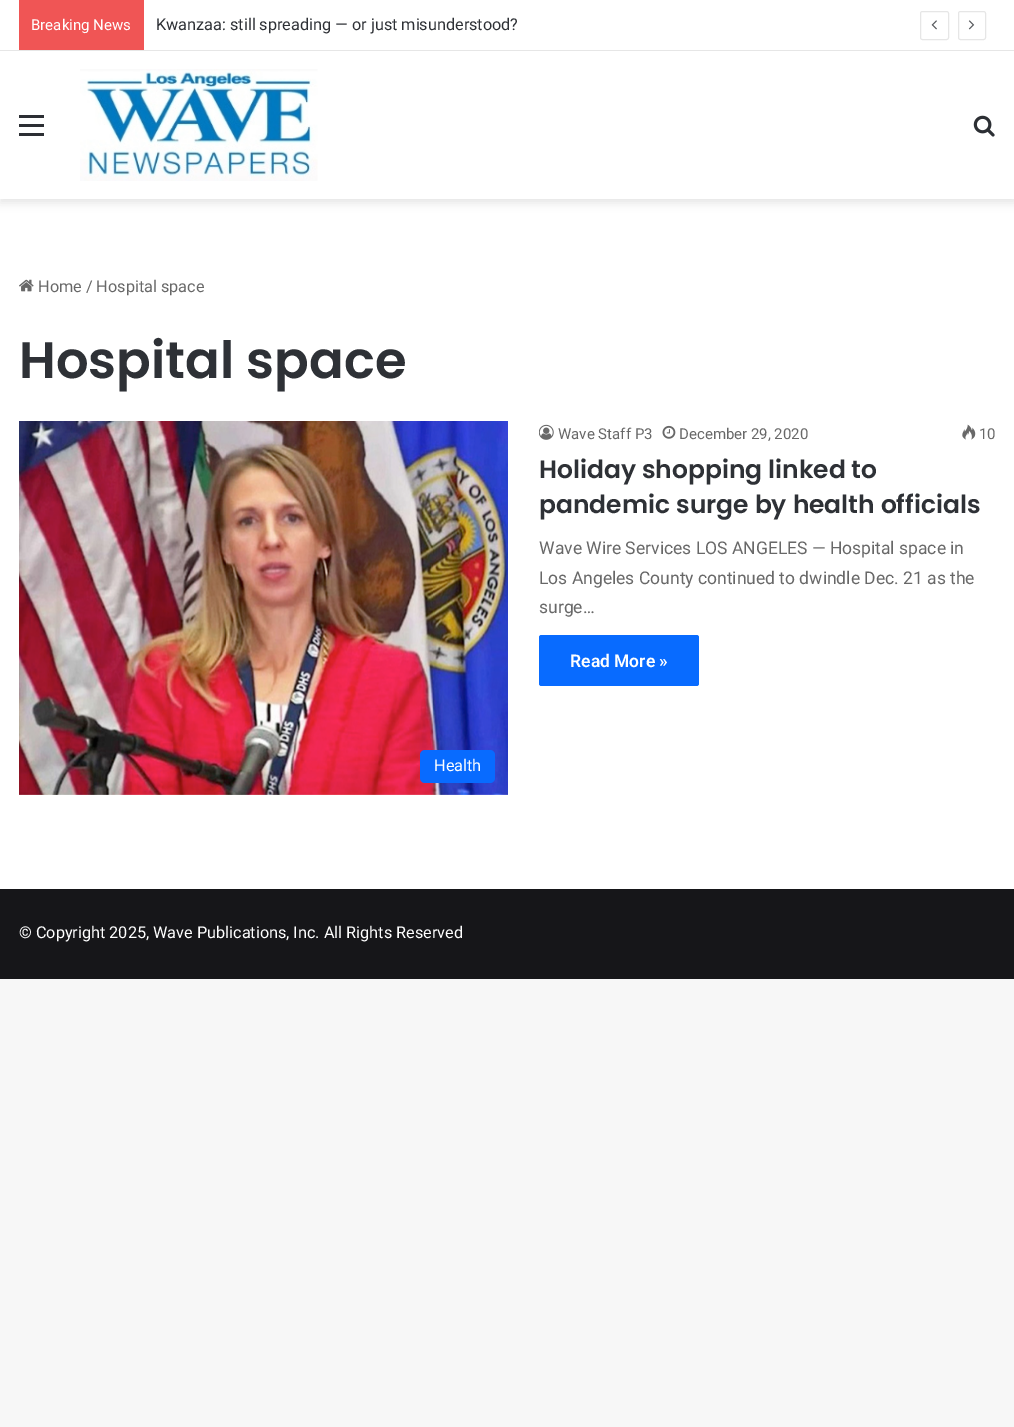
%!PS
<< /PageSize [1014 1427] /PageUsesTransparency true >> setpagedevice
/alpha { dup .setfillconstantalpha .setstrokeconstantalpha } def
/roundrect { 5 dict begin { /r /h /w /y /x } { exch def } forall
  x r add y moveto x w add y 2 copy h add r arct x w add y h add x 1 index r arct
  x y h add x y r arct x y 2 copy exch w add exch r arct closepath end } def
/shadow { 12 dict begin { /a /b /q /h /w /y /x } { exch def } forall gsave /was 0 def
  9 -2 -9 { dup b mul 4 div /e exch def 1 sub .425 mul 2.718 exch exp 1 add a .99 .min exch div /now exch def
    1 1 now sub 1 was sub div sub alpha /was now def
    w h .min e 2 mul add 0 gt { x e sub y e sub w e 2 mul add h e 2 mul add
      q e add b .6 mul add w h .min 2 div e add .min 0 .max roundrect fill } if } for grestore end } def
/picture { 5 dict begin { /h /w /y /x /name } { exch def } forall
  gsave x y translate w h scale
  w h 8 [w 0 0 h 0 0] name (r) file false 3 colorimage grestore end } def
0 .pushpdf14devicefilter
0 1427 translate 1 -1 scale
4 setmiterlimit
0.969 setgray
0 0 1014 1427 rectfill
1 setgray
0 199 1014 690 rectfill
0 setgray
0 55 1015 148 0 4.5 0.1 shadow
1 setgray
0 0 1014 50 rectfill
0.902 setgray
0 50 1014 1 rectfill
0.941 0.333 0.333 setrgbcolor
19 0 125 50 rectfill
/Roboto-Regular [15 0 0 -15 0 0] selectfont
1 setgray
31 30 moveto (Breaking News) show
/Roboto-Regular [16.25 0 0 -16.25 0 0] selectfont
0.18 0.192 0.212 setrgbcolor
156 30 moveto (Kwanzaa: still spreading — or just misunderstood?) show
0.902 setgray
920.5 11.5 28 28 2 roundrect stroke
(img1.rgb) 931 20 6 10 picture
958.5 11.5 27 28 2 roundrect stroke
(img2.rgb) 968 20 7 10 picture
1 setgray
0 51 1014 148 rectfill
0.173 0.184 0.204 setrgbcolor
19 124 25 3 rectfill
19 115 25 3 rectfill
19 133 25 3 rectfill
(img3.rgb) 80 69 238 112 picture
(img4.rgb) 973 115 22 22 picture
(img5.rgb) 19 279 15 13 picture
0.408 setgray
38 292 moveto (Home / Hospital space) show
/Poppins-SemiBold [51.25 0 0 -51.25 0 0] selectfont
0.18 0.192 0.212 setrgbcolor
19 378 moveto (Hospital space) show
(img6.rgb) 539 424 15 16 picture
/Roboto-Regular [15 0 0 -15 0 0] selectfont
0.408 setgray
558 439 moveto (Wave Staff P3) show
(img7.rgb) 662 425 14 14 picture
679 439 moveto (December 29, 2020) show
(img8.rgb) 962 424 14 16 picture
979 439 moveto (10) show
/Poppins-SemiBold [25 0 0 -25 0 0] selectfont
0.18 0.192 0.212 setrgbcolor
539 478 moveto (Holiday shopping linked to) show
539 513 moveto (pandemic surge by health officials) show
/Roboto-Regular [17.5 0 0 -17.5 0 0] selectfont
0.408 setgray
539 554 moveto (Wave Wire Services LOS ANGELES — Hospital space in) show
539 584 moveto (Los Angeles County continued to dwindle Dec. 21 as the) show
539 613 moveto (surge…) show
0.031 0.42 1 setrgbcolor
539 635 160 51 2.5 roundrect fill
/Roboto-SemiBold [17.5 0 0 -17.5 0 0] selectfont
1 setgray
570 667 moveto (Read More ») show
(img9.rgb) 19 421 489 374 picture
0.031 0.42 1 setrgbcolor
420 750 75 33 5 roundrect fill
/Roboto-Regular [16.25 0 0 -16.25 0 0] selectfont
1 setgray
434 771 moveto (Health) show
0.086 0.086 0.098 setrgbcolor
0 889 1014 90 rectfill
1 setgray
19 938 moveto (© Copyright 2025, Wave Publications, Inc. All Rights Reserved) show
.poppdf14devicefilter showpage
